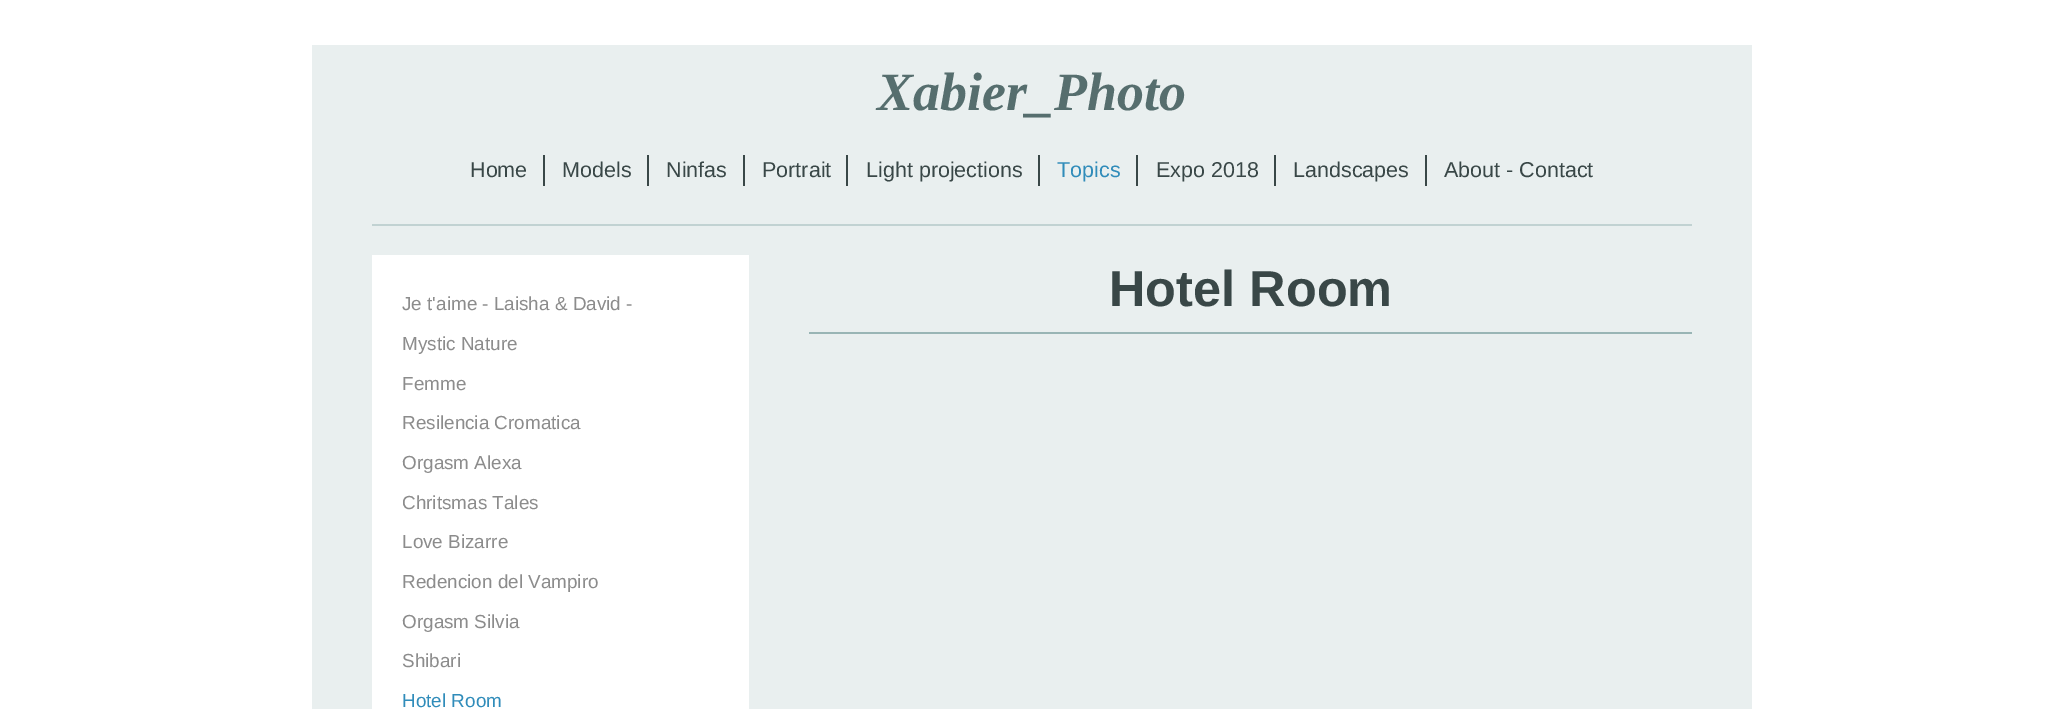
%!PS
<< /PageSize [2063 709] >> setpagedevice
0 709 translate 1 -1 scale
4 setmiterlimit
1 setgray
0 0 2063 709 rectfill
0.914 0.937 0.937 setrgbcolor
312 45 1440 664 rectfill
/LiberationSerif-BoldItalic [54 0 0 -54 0 0] selectfont
0.337 0.431 0.431 setrgbcolor
877 110 moveto (Xabier_Photo) show
0.757 0.824 0.824 setrgbcolor
372 224 1320 2 rectfill
0.224 0.278 0.278 setrgbcolor
543 155 2 31 rectfill
/LiberationSans-Regular [21.5 0 0 -21.5 0 0] selectfont
470 177 moveto (Home) show
647 155 2 31 rectfill
562 177 moveto (Models) show
743 155 2 31 rectfill
666 177 moveto (Ninfas) show
846 155 2 31 rectfill
762 177 moveto (Portrait) show
1038 155 2 31 rectfill
866 177 moveto (Light projections) show
1136 155 2 31 rectfill
0.188 0.549 0.729 setrgbcolor
1057 177 moveto (Topics) show
0.224 0.278 0.278 setrgbcolor
1274 155 2 31 rectfill
1156 177 moveto (Expo 2018) show
1425 155 2 31 rectfill
1293 177 moveto (Landscapes) show
1444 177 moveto (About - Contact) show
/LiberationSans-Bold [50.5 0 0 -50.5 0 0] selectfont
1109 306 moveto (Hotel Room) show
0.6 0.71 0.71 setrgbcolor
809 332 883 2 rectfill
1 setgray
372 255 377 454 rectfill
/LiberationSans-Regular [18.9 0 0 -18.9 0 0] selectfont
0.549 setgray
402 310 moveto (Je t'aime - Laisha & David -) show
402 350 moveto (Mystic Nature) show
402 390 moveto (Femme) show
402 429 moveto (Resilencia Cromatica) show
402 469 moveto (Orgasm Alexa) show
402 509 moveto (Chritsmas Tales) show
402 548 moveto (Love Bizarre) show
402 588 moveto (Redencion del Vampiro) show
402 628 moveto (Orgasm Silvia) show
402 667 moveto (Shibari) show
0.188 0.549 0.729 setrgbcolor
402 707 moveto (Hotel Room) show
showpage
